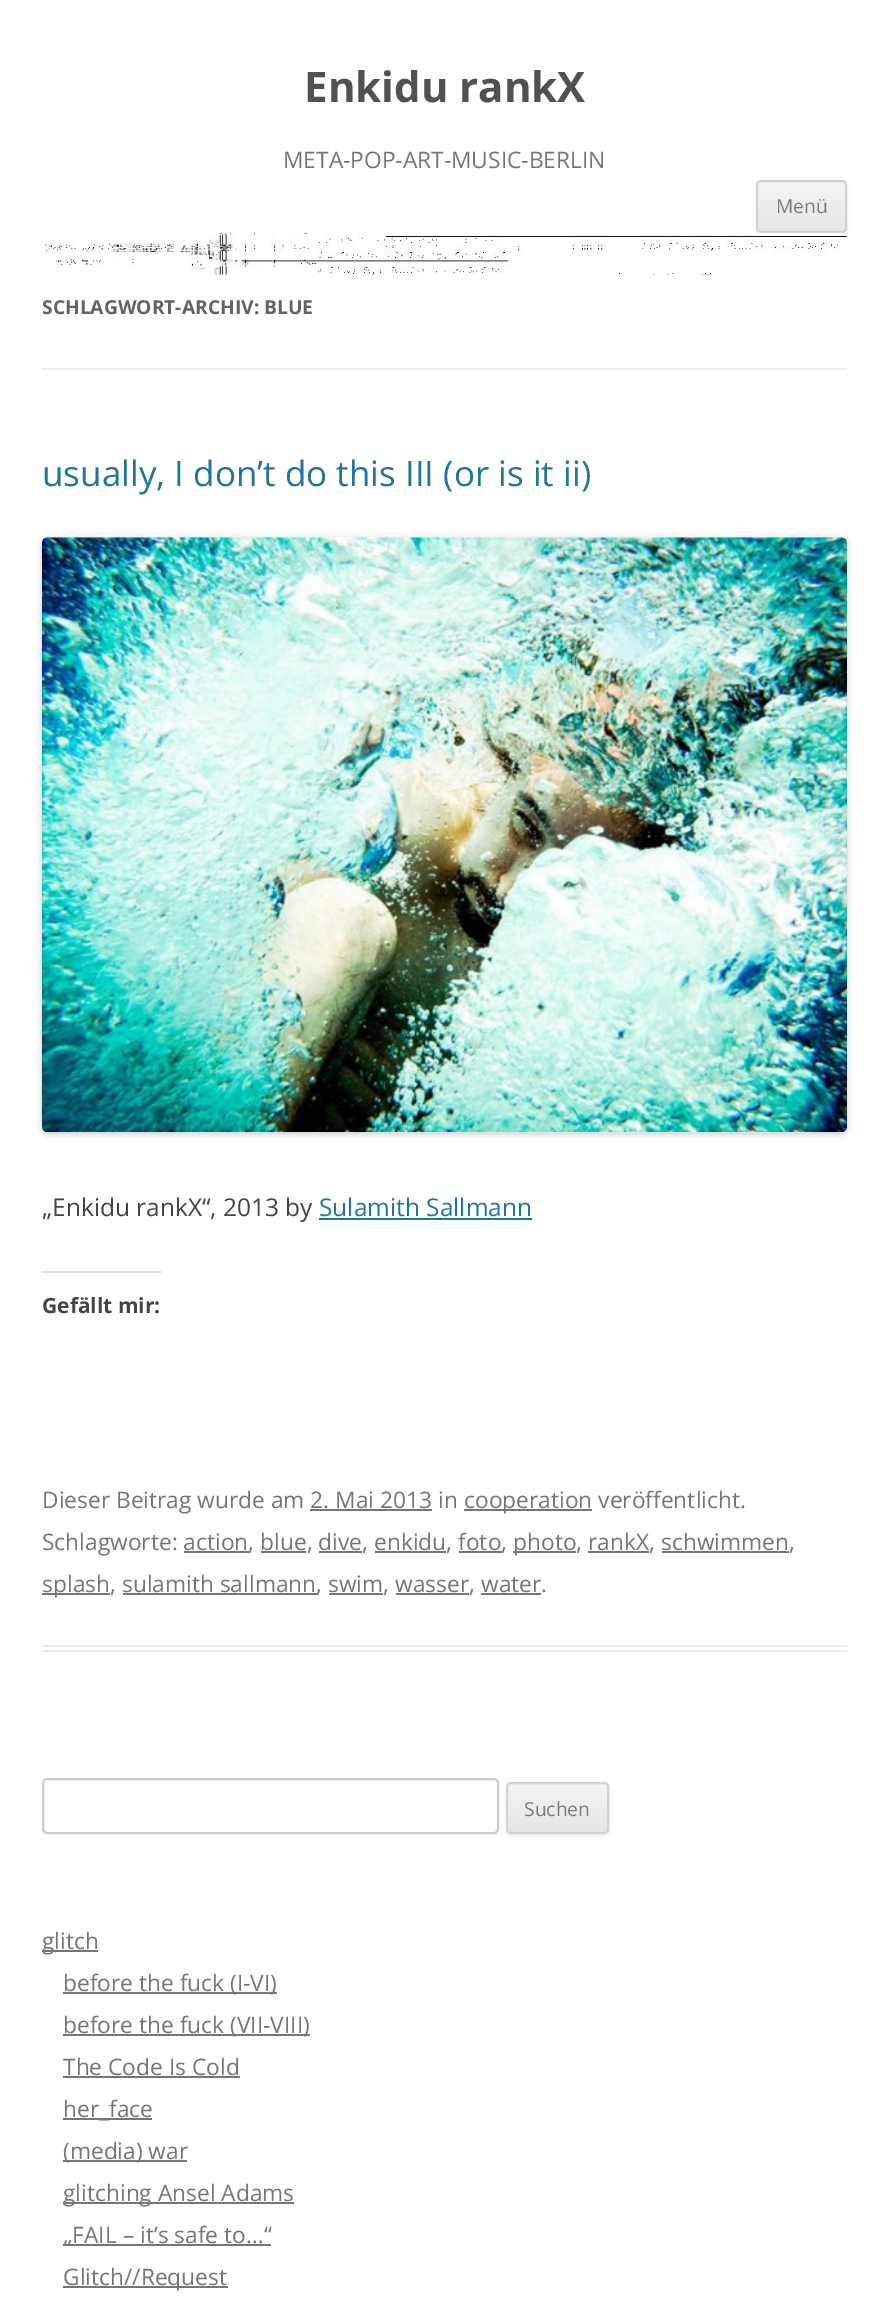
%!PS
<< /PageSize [889 2299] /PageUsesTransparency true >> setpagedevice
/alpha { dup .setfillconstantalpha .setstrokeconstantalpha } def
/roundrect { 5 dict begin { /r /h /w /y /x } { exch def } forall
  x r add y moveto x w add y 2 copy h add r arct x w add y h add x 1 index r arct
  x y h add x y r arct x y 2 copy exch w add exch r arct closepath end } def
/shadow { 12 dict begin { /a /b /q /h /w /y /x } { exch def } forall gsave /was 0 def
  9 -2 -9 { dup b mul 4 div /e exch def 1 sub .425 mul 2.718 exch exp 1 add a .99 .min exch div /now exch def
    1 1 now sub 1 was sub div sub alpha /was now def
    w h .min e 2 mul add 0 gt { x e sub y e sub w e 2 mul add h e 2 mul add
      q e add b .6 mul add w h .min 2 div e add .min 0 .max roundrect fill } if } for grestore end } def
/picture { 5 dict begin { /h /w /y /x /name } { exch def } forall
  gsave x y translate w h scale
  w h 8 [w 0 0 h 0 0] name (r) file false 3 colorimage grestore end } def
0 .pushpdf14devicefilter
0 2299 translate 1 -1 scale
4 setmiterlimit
1 setgray
0 0 889 2299 rectfill
/OpenSans-Bold [42 0 0 -42 0 0] selectfont
0.318 setgray
304 102 moveto (Enkidu rankX) show
/OpenSans-Regular [22.75 0 0 -22.75 0 0] selectfont
0.459 setgray
283 168 moveto (META-POP-ART-MUSIC-BERLIN) show
0.251 setgray
756 182 91 53 5 2 0.1 shadow
gsave
756 180 91 53 5 roundrect clip newpath
gsave newpath 756 182 moveto 847 182 lineto 847 231 lineto 756 231 lineto closepath clip newpath
<< /ShadingType 2 /ColorSpace /DeviceRGB /Coords [802 182 802 231] /Extend [true true] /Function << /FunctionType 2 /Domain [0 1] /C0 [0.957 0.957 0.957] /C1 [0.902 0.902 0.902] /N 1 >> >> shfill grestore
grestore
0.824 setgray
2 setlinewidth
757 181 89 51 4 roundrect stroke
/OpenSans-Regular [19.25 0 0 -19.25 0 0] selectfont
0.486 setgray
776 213 moveto (Menü) show
(img1.rgb) 42 232 805 43 picture
0.929 setgray
42 368 805 2 rectfill
/OpenSans-Bold [19.25 0 0 -19.25 0 0] selectfont
0.388 setgray
42 314 moveto (SCHLAGWORT-ARCHIV: BLUE) show
0.929 setgray
42 1645 805 2 rectfill
42 1650 805 2 rectfill
/OpenSans-Regular [35 0 0 -35 0 0] selectfont
0.129 0.459 0.608 setrgbcolor
42 486 moveto (usually, I don’t do this III \(or is it ii\)) show
0 setgray
42 539 805 595 5 3.5 0.2 shadow
(img2.rgb) 42 537 805 596 picture
/OpenSans-Regular [24.5 0 0 -24.5 0 0] selectfont
0.267 setgray
42 1216 moveto („Enkidu rankX“, 2013 by) show
0.129 0.459 0.608 setrgbcolor
319 1216 moveto (Sulamith Sallmann) show
319 1218 213 2 rectfill
0.863 0.863 0.871 setrgbcolor
42 1271 119 2 rectfill
/OpenSans-Bold [21 0 0 -21 0 0] selectfont
0.267 setgray
42 1313 moveto (Gefällt mir:) show
/OpenSans-Regular [22.75 0 0 -22.75 0 0] selectfont
0.459 setgray
42 1508 moveto (Dieser Beitrag wurde am 2. Mai 2013 in) show
464 1509 128 2 rectfill
464 1508 moveto (cooperation veröffentlicht.) show
310 1509 122 2 rectfill
42 1550 moveto (Schlagworte: action, blue, dive, enkidu, foto,) show
513 1551 63 2 rectfill
513 1550 moveto (photo, rankX, schwimmen,) show
184 1551 65 2 rectfill
261 1551 45 2 rectfill
319 1551 43 2 rectfill
375 1551 71 2 rectfill
459 1551 43 2 rectfill
588 1551 61 2 rectfill
662 1551 127 2 rectfill
42 1593 68 2 rectfill
42 1592 moveto (splash, sulamith sallmann, swim, wasser, water.) show
123 1593 194 2 rectfill
329 1593 54 2 rectfill
396 1593 73 2 rectfill
481 1593 60 2 rectfill
0.8 setgray
43 1779 455 54 4 roundrect stroke
0.251 setgray
506 1783 103 53 5 2 0.1 shadow
gsave
506 1782 103 52 5 roundrect clip newpath
gsave newpath 506 1783 moveto 609 1783 lineto 609 1832 lineto 506 1832 lineto closepath clip newpath
<< /ShadingType 2 /ColorSpace /DeviceRGB /Coords [557 1783 557 1832] /Extend [true true] /Function << /FunctionType 2 /Domain [0 1] /C0 [0.957 0.957 0.957] /C1 [0.902 0.902 0.902] /N 1 >> >> shfill grestore
grestore
0.824 setgray
507 1783 101 50 4 roundrect stroke
/OpenSans-Regular [19.25 0 0 -19.25 0 0] selectfont
0.486 setgray
524 1816 moveto (Suchen) show
0.459 setgray
42 1950 56 2 rectfill
/OpenSans-Regular [22.75 0 0 -22.75 0 0] selectfont
42 1949 moveto (glitch) show
63 1992 214 2 rectfill
63 1991 moveto (before the fuck \(I-VI\)) show
63 2034 247 2 rectfill
63 2033 moveto (before the fuck \(VII-VIII\)) show
63 2075 moveto (The Code Is Cold) show
63 2076 177 2 rectfill
63 2118 89 2 rectfill
63 2117 moveto (her_face) show
63 2160 124 2 rectfill
63 2159 moveto (\(media\) war) show
63 2202 231 2 rectfill
63 2201 moveto (glitching Ansel Adams) show
63 2244 208 2 rectfill
63 2243 moveto („FAIL – it’s safe to…“) show
63 2286 165 2 rectfill
63 2285 moveto (Glitch//Request) show
.poppdf14devicefilter showpage
